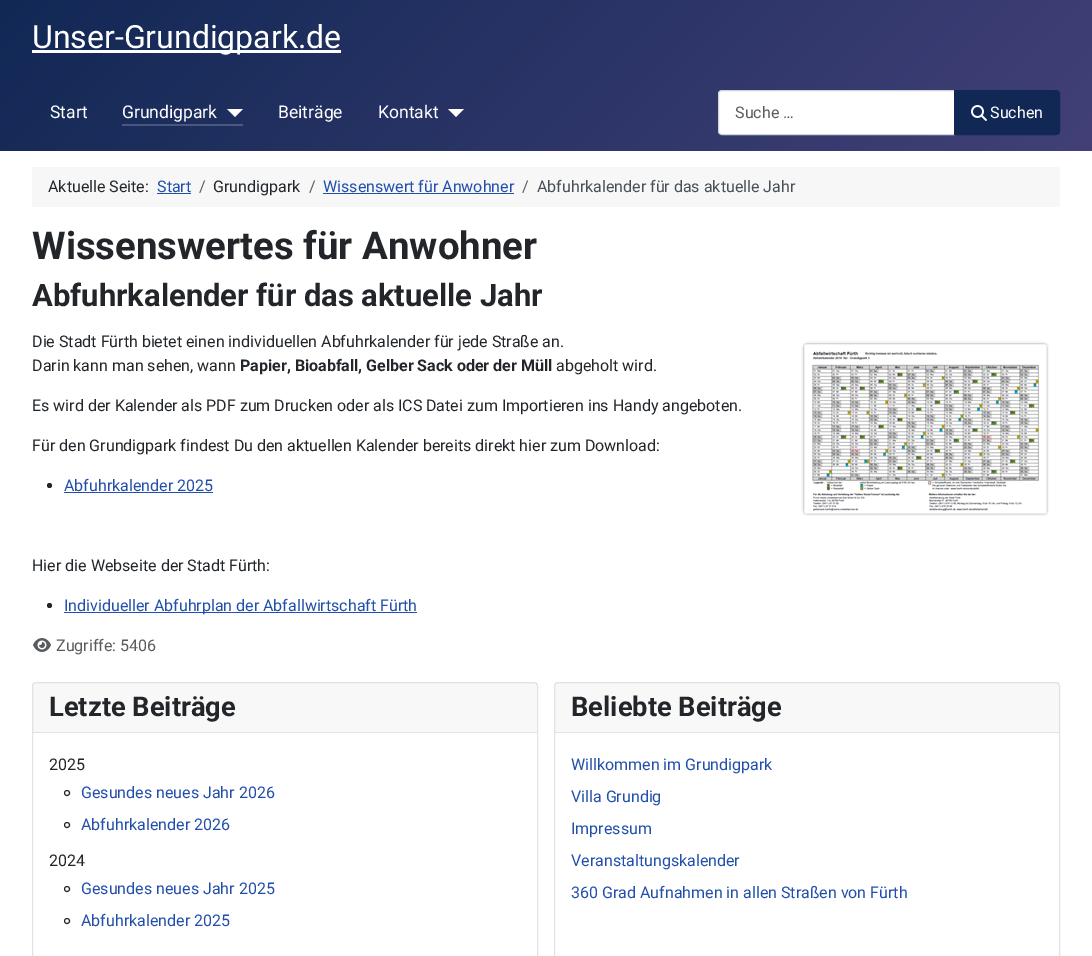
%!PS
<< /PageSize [1092 956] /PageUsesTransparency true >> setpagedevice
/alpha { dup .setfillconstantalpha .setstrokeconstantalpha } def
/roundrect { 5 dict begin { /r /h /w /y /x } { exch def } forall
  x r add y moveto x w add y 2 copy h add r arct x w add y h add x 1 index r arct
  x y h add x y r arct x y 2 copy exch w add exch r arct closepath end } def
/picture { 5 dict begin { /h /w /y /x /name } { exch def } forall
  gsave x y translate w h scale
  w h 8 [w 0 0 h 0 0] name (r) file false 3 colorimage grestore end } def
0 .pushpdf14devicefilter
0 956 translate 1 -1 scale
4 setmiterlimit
1 setgray
0 0 1092 956 rectfill
gsave newpath 0 0 moveto 1092 0 lineto 1092 151 lineto 0 151 lineto closepath clip newpath
<< /ShadingType 2 /ColorSpace /DeviceRGB /Coords [235 -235 857 386] /Extend [true true] /Function << /FunctionType 2 /Domain [0 1] /C0 [0.067 0.157 0.333] /C1 [0.259 0.251 0.467] /N 1 >> >> shfill grestore
gsave newpath 122 124 moveto 243 124 lineto 243 126 lineto 122 126 lineto closepath clip newpath
<< /ShadingType 2 /ColorSpace /DeviceRGB /Coords [235 -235 857 386] /Extend [true true] /Function << /FunctionType 2 /Domain [0 1] /C0 [0.255 0.325 0.467] /C1 [0.408 0.4 0.573] /N 1 >> >> shfill grestore
32 50 309 3 rectfill
/Roboto-Regular [32 0 0 -32 0 0] selectfont
32 48 moveto (Unser-Grundigpark.de) show
/Roboto-Regular [17.5 0 0 -17.5 0 0] selectfont
50 118 moveto (Start) show
122 118 moveto (Grundigpark) show
newpath 227 109 moveto 243 109 lineto 235 117 lineto closepath fill
278 118 moveto (Beiträge) show
378 118 moveto (Kontakt) show
newpath 448 109 moveto 464 109 lineto 456 117 lineto closepath fill
newpath 722 90.5 moveto 954.5 90.5 lineto 954.5 134.5 lineto 722 134.5 lineto 720 134.5 718.5 133 718.5 131 curveto 718.5 94 lineto 718.5 92 720 90.5 722 90.5 curveto closepath gsave fill grestore
0.808 0.831 0.855 setrgbcolor
stroke
/Roboto-Regular [16 0 0 -16 0 0] selectfont
0.349 0.361 0.373 setrgbcolor
735 118 moveto (Suche …) show
0.067 0.157 0.333 setrgbcolor
newpath 954.5 90.5 moveto 1056 90.5 lineto 1058 90.5 1059.5 92 1059.5 94 curveto 1059.5 131 lineto 1059.5 133 1058 134.5 1056 134.5 curveto 954.5 134.5 lineto closepath gsave fill grestore
stroke
(img1.rgb) 971 105 16 16 picture
1 setgray
990 118 moveto (Suchen) show
0.969 setgray
32 167 1028 40 rectfill
0.133 0.149 0.165 setrgbcolor
48 192 moveto (Aktuelle Seite:) show
0.133 0.31 0.667 setrgbcolor
157 192 moveto (Start) show
157 193 34 1 rectfill
0.349 0.361 0.373 setrgbcolor
199 192 moveto (/) show
0.133 0.149 0.165 setrgbcolor
213 192 moveto (Grundigpark) show
0.349 0.361 0.373 setrgbcolor
309 192 moveto (/) show
0.133 0.31 0.667 setrgbcolor
323 192 moveto (Wissenswert für Anwohner) show
323 193 191 1 rectfill
0.349 0.361 0.373 setrgbcolor
522 192 moveto (/) show
0.282 0.31 0.337 setrgbcolor
537 192 moveto (Abfuhrkalender für das aktuelle Jahr) show
/Roboto-Bold [38.4 0 0 -38.4 0 0] selectfont
0.133 0.149 0.165 setrgbcolor
32 259 moveto (Wissenswertes für Anwohner) show
/Roboto-Bold [31 0 0 -31 0 0] selectfont
32 306 moveto (Abfuhrkalender für das aktuelle Jahr) show
/Roboto-Regular [16 0 0 -16 0 0] selectfont
32 347 moveto (Die Stadt Fürth bietet einen individuellen Abfuhrkalender für jede Straße an.) show
(img2.rgb) 801 341 248 175 picture
32 371 moveto (Darin kann man sehen, wann) show
/Roboto-Bold [16 0 0 -16 0 0] selectfont
240 371 moveto (Papier, Bioabfall, Gelber Sack oder der Müll) show
/Roboto-Regular [16 0 0 -16 0 0] selectfont
556 371 moveto (abgeholt wird.) show
32 411 moveto (Es wird der Kalender als PDF zum Drucken oder als ICS Datei zum Importieren ins Handy angeboten.) show
32 451 moveto (Für den Grundigpark findest Du den aktuellen Kalender bereits direkt hier zum Download:) show
newpath 49.5 485.5 2.5 0 360 arc closepath fill
0.133 0.31 0.667 setrgbcolor
64 491 moveto (Abfuhrkalender 2025) show
64 492 149 1 rectfill
0.133 0.149 0.165 setrgbcolor
32 571 moveto (Hier die Webseite der Stadt Fürth:) show
newpath 49.5 605.5 2.5 0 360 arc closepath fill
0.133 0.31 0.667 setrgbcolor
64 612 353 1 rectfill
64 611 moveto (Individueller Abfuhrplan der Abfallwirtschaft Fürth) show
(img3.rgb) 33 638 18 14 picture
0.349 0.361 0.373 setrgbcolor
56 651 moveto (Zugriffe: 5406) show
0.875 0.89 0.906 setrgbcolor
32.5 682.5 505 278 3.5 roundrect stroke
0.03 alpha
0.133 0.149 0.165 setrgbcolor
33 683 504 49 rectfill
1 alpha
0.875 0.89 0.906 setrgbcolor
33 732 504 1 rectfill
/Roboto-Bold [27.25 0 0 -27.25 0 0] selectfont
0.133 0.149 0.165 setrgbcolor
49 716 moveto (Letzte Beiträge) show
/Roboto-Regular [16 0 0 -16 0 0] selectfont
49 770 moveto (2025) show
newpath 67 793 2.5 0 360 arc closepath stroke
0.133 0.31 0.667 setrgbcolor
81 798 moveto (Gesundes neues Jahr 2026) show
0.133 0.149 0.165 setrgbcolor
newpath 67 825 2.5 0 360 arc closepath stroke
0.133 0.31 0.667 setrgbcolor
81 830 moveto (Abfuhrkalender 2026) show
0.133 0.149 0.165 setrgbcolor
49 866 moveto (2024) show
newpath 67 889 2.5 0 360 arc closepath stroke
0.133 0.31 0.667 setrgbcolor
81 894 moveto (Gesundes neues Jahr 2025) show
0.133 0.149 0.165 setrgbcolor
newpath 67 921 2.5 0 360 arc closepath stroke
0.133 0.31 0.667 setrgbcolor
81 926 moveto (Abfuhrkalender 2025) show
0.875 0.89 0.906 setrgbcolor
554.5 682.5 505 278 3.5 roundrect stroke
0.03 alpha
0.133 0.149 0.165 setrgbcolor
555 683 504 49 rectfill
1 alpha
0.875 0.89 0.906 setrgbcolor
555 732 504 1 rectfill
/Roboto-Bold [27.25 0 0 -27.25 0 0] selectfont
0.133 0.149 0.165 setrgbcolor
571 716 moveto (Beliebte Beiträge) show
/Roboto-Regular [16 0 0 -16 0 0] selectfont
0.133 0.31 0.667 setrgbcolor
571 770 moveto (Willkommen im Grundigpark) show
571 802 moveto (Villa Grundig) show
571 834 moveto (Impressum) show
571 866 moveto (Veranstaltungskalender) show
571 898 moveto (360 Grad Aufnahmen in allen Straßen von Fürth) show
.poppdf14devicefilter showpage
